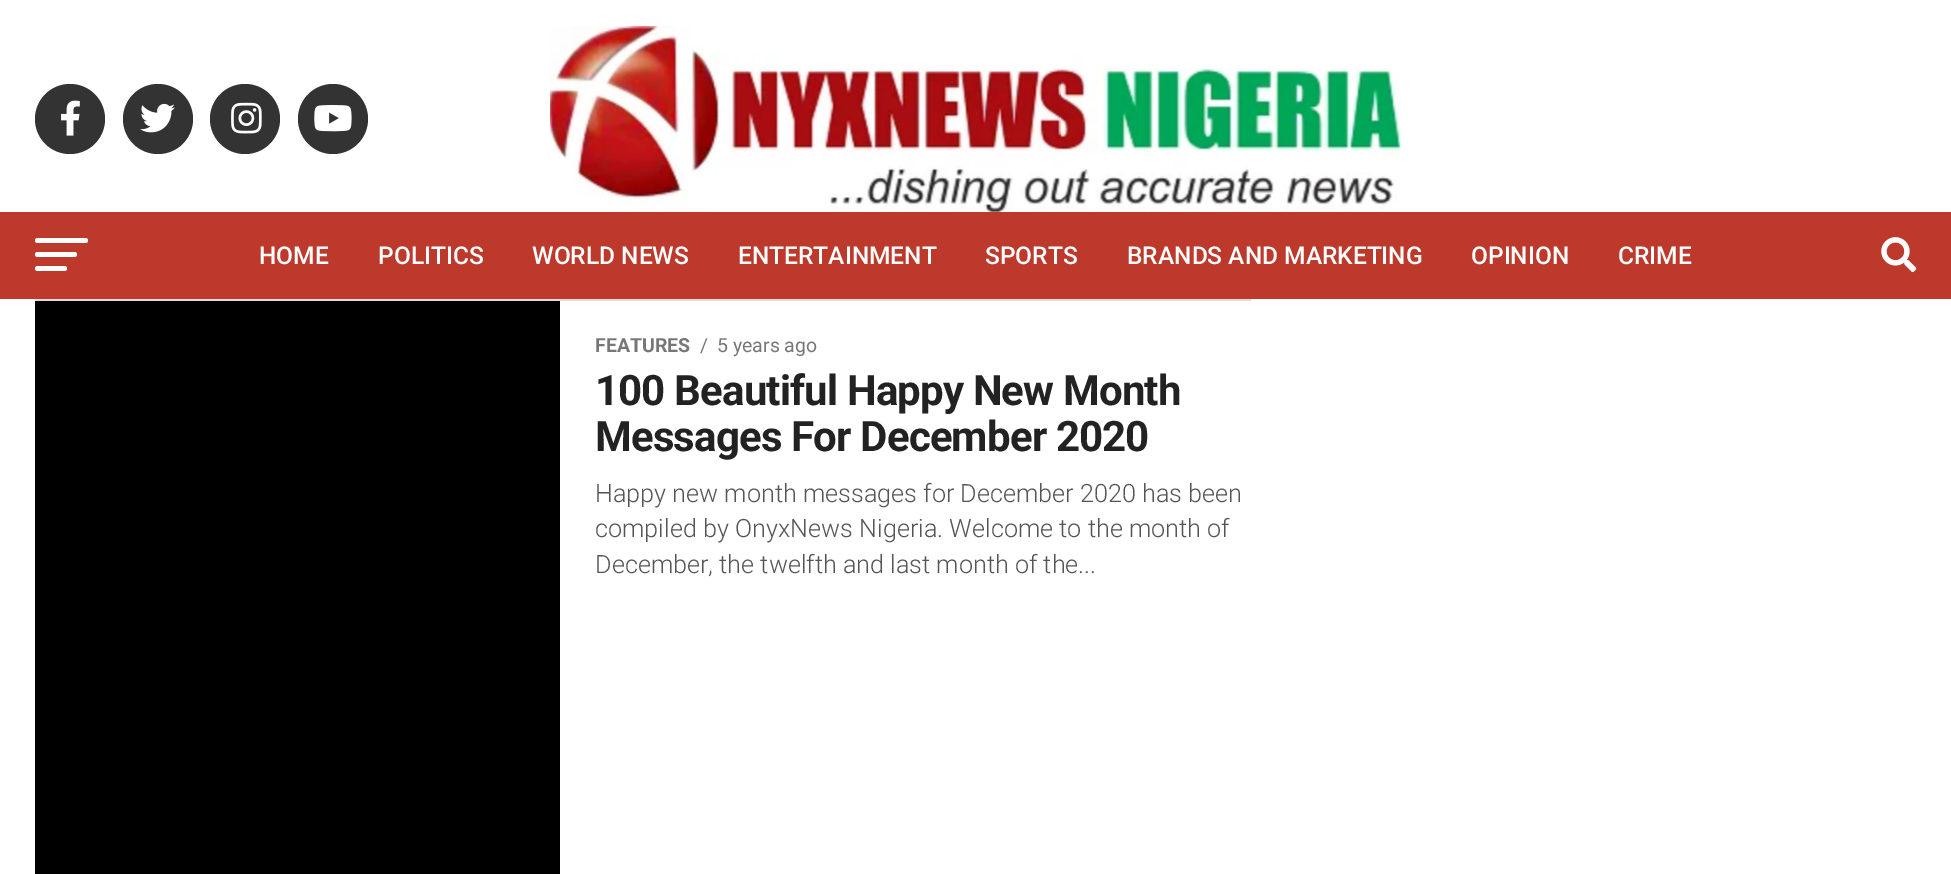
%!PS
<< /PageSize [1951 874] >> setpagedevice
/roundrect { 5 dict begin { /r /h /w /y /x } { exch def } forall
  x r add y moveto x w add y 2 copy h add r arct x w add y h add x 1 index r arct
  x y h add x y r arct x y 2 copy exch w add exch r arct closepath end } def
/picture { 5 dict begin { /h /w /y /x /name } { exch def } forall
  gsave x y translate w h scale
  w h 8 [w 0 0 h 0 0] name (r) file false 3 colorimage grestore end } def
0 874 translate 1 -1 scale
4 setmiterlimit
1 setgray
0 0 1951 874 rectfill
0.2 setgray
newpath 70 119 35 0 360 arc closepath fill
(img1.rgb) 61 100 19 36 picture
newpath 158 119 35 0 360 arc closepath fill
(img2.rgb) 140 103 35 30 picture
newpath 245 119 35 0 360 arc closepath fill
(img3.rgb) 231 102 31 32 picture
newpath 333 119 35 0 360 arc closepath fill
(img4.rgb) 314 105 38 27 picture
(img5.rgb) 550 26 851 186 picture
0.737 0.224 0.169 setrgbcolor
0 212 1951 87 rectfill
1 setgray
35 238 53 5 2.5 roundrect fill
35 252 42 5 2.5 roundrect fill
35 266 32 5 2.5 roundrect fill
/Roboto-Medium [24.5 0 0 -24.5 0 0] selectfont
259 264 moveto (HOME) show
378 264 moveto (POLITICS) show
532 264 moveto (WORLD NEWS) show
738 264 moveto (ENTERTAINMENT) show
985 264 moveto (SPORTS) show
1127 264 moveto (BRANDS AND MARKETING) show
1471 264 moveto (OPINION) show
1618 264 moveto (CRIME) show
(img6.rgb) 1881 237 36 36 picture
0.867 setgray
35 299 1216 2 rectfill
0 setgray
35 301 525 573 rectfill
/Roboto-Bold [19.5 0 0 -19.5 0 0] selectfont
0.467 setgray
595 352 moveto (FEATURES) show
/Roboto-Regular [19.5 0 0 -19.5 0 0] selectfont
700 352 moveto (/) show
717 352 moveto (5 years ago) show
/Roboto-Bold [42 0 0 -42 0 0] selectfont
0.133 setgray
595 405 moveto -0.85 0 (100 Beautiful Happy New Month) ashow
595 451 moveto -0.85 0 (Messages For December 2020) ashow
/Roboto-Light [25.2 0 0 -25.2 0 0] selectfont
0.333 setgray
595 502 moveto (Happy new month messages for December 2020 has been) show
595 537 moveto (compiled by OnyxNews Nigeria. Welcome to the month of) show
595 573 moveto (December, the twelfth and last month of the...) show
showpage
